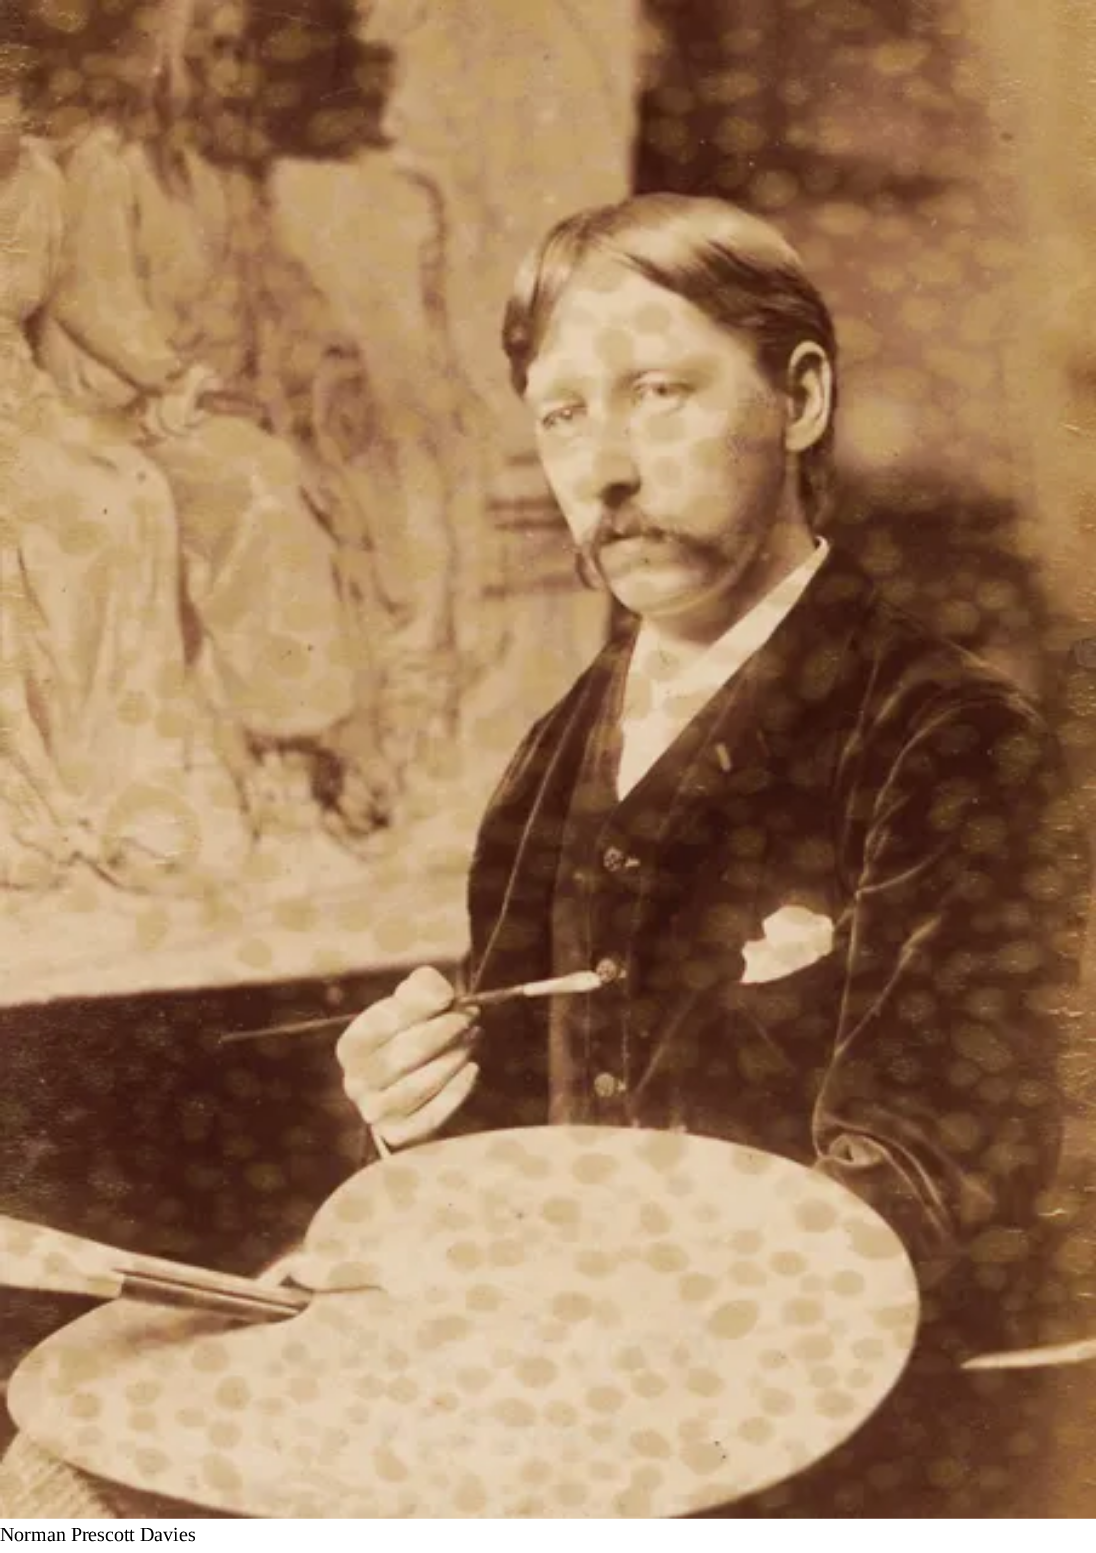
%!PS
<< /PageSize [1096 1553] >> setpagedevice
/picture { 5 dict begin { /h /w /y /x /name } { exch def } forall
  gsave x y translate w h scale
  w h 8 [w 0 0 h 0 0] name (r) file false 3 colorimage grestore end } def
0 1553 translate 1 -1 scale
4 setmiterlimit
1 setgray
0 0 1096 1553 rectfill
(img1.rgb) 0 0 1096 1519 picture
/LiberationSerif-Regular [20 0 0 -20 0 0] selectfont
0 setgray
0 1541 moveto (Norman Prescott Davies) show
showpage
